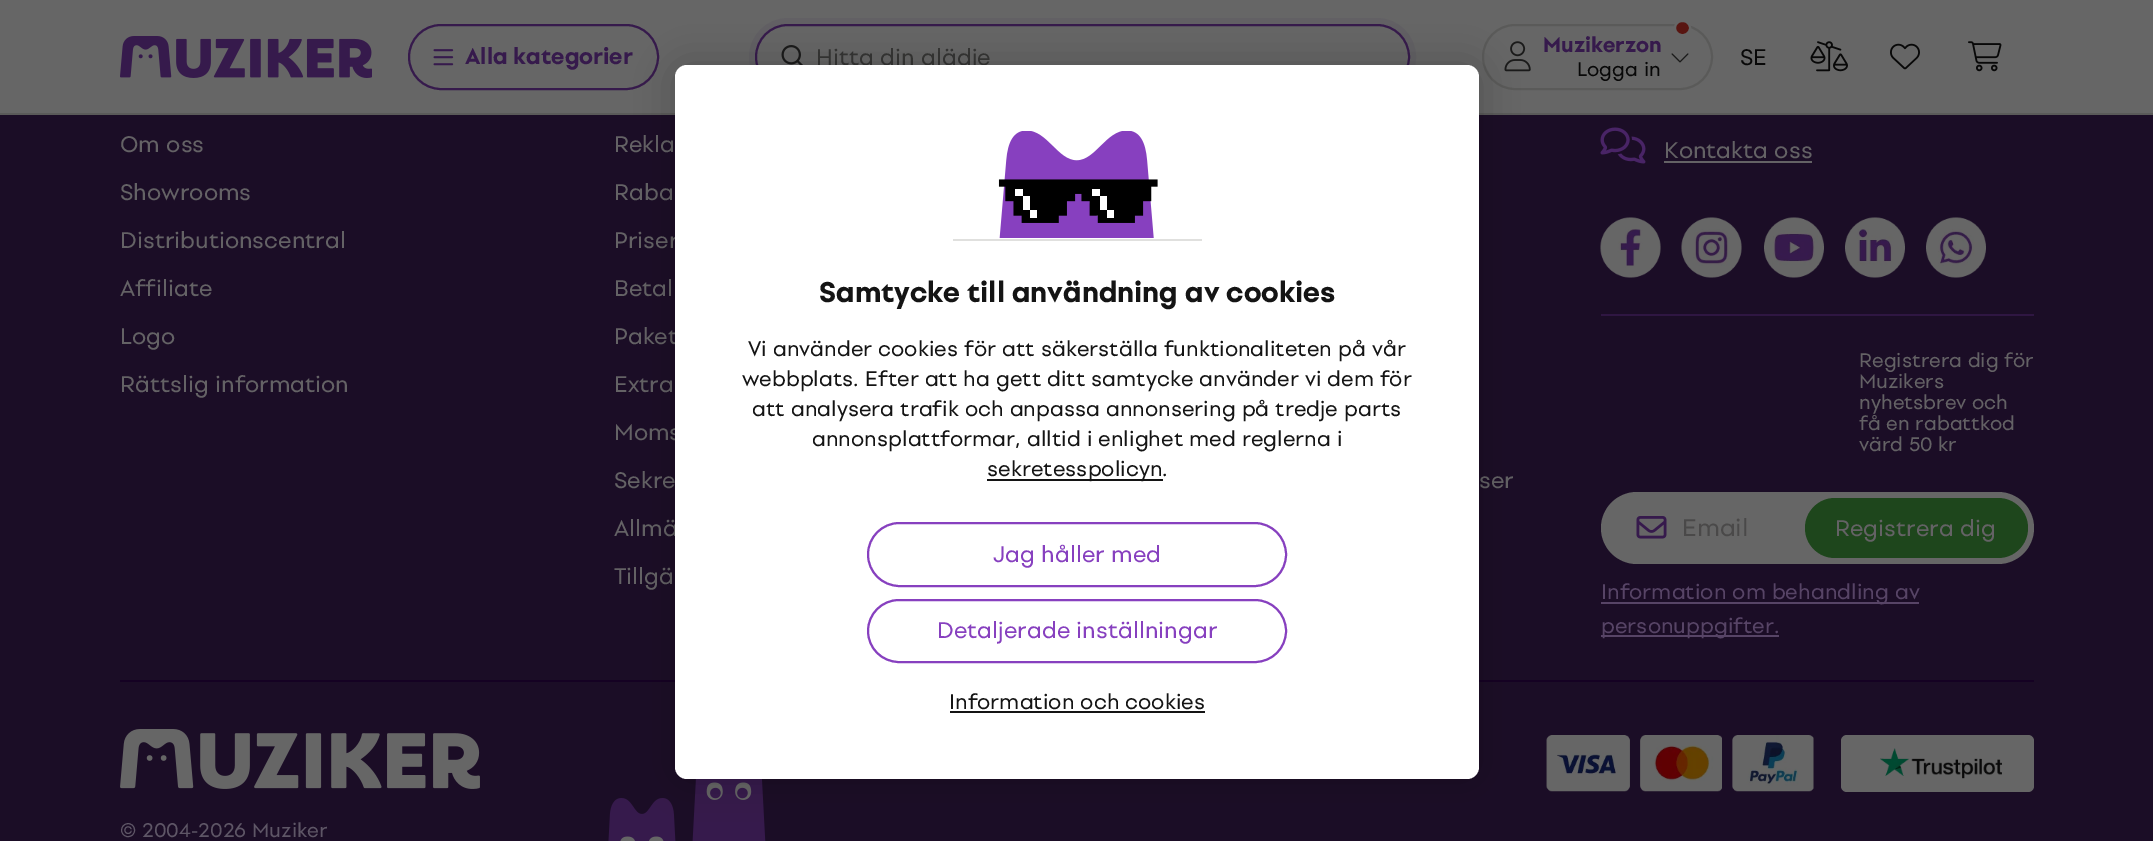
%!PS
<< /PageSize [2153 841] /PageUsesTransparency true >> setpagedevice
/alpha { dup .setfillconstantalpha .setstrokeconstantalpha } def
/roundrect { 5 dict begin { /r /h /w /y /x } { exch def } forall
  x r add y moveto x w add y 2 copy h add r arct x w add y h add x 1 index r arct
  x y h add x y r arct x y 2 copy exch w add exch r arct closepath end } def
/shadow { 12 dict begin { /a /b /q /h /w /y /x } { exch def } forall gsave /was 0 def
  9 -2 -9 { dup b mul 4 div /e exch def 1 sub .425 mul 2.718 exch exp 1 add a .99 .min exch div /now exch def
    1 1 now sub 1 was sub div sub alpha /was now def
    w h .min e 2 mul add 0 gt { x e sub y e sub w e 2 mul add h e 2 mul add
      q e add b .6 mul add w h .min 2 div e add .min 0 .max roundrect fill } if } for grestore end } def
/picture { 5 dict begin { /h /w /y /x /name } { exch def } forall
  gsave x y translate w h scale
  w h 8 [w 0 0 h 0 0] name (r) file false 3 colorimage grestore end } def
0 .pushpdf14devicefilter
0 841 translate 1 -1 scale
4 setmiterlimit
0.106 0.051 0.149 setrgbcolor
0 0 2153 841 rectfill
0.4 setgray
0 0 2153 113 rectfill
0.353 0.353 0.349 setrgbcolor
0 113 2153 2 rectfill
(img1.rgb) 120 36 252 42 picture
0.212 0.102 0.298 setrgbcolor
2 setlinewidth
409 25 249 64 32 roundrect stroke
(img2.rgb) 433 49 21 17 picture
/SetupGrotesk-Bold [22.5 0 0 -22.5 0 0] selectfont
465 64 moveto (Alla kategorier) show
0.384 0.376 0.392 setrgbcolor
6 setlinewidth
752 21 661 72 36 roundrect stroke
0.212 0.102 0.298 setrgbcolor
2 setlinewidth
756 25 653 64 32 roundrect stroke
(img3.rgb) 781 45 22 20 picture
/SetupGrotesk-Regular [22.5 0 0 -22.5 0 0] selectfont
0.208 0.208 0.204 setrgbcolor
816 65 moveto (Hitta din glädje) show
0.353 0.353 0.349 setrgbcolor
1483 25 229 64 32 roundrect stroke
0.345 0.082 0.067 setrgbcolor
1675 21 15 14 7 roundrect gsave fill grestore
0.4 setgray
stroke
(img4.rgb) 1504 41 27 31 picture
/SetupGrotesk-Bold [21 0 0 -21 0 0] selectfont
0.212 0.102 0.298 setrgbcolor
1543 52 moveto (Muzikerzon) show
/SetupGrotesk-Regular [19.5 0 0 -19.5 0 0] selectfont
0.031 setgray
1577 76 moveto (Logga in) show
(img5.rgb) 1671 53 18 10 picture
/SetupGrotesk-Regular [22.5 0 0 -22.5 0 0] selectfont
1740 65 moveto (SE) show
(img6.rgb) 1810 41 38 31 picture
(img7.rgb) 1890 43 30 27 picture
(img8.rgb) 1968 41 34 31 picture
0.392 0.384 0.396 setrgbcolor
120 152 moveto (Om oss) show
120 200 moveto (Showrooms) show
120 248 moveto (Distributionscentral) show
120 296 moveto (Affiliate) show
120 344 moveto (Logo) show
120 392 moveto (Rättslig information) show
614 152 moveto (Rekla) show
614 200 moveto (Raba) show
614 248 moveto (Priser) show
614 296 moveto (Betal) show
614 344 moveto (Paket) show
614 392 moveto (Extra) show
614 440 moveto (Moms) show
614 488 moveto (Sekre) show
614 536 moveto (Allmä) show
614 584 moveto (Tillgä) show
1479 488 moveto (ser) show
(img9.rgb) 1600 127 46 37 picture
1664 158 moveto (Kontakta oss) show
1664 161 148 2 rectfill
(img10.rgb) 1600 217 61 61 picture
(img11.rgb) 1681 217 61 61 picture
(img12.rgb) 1764 217 60 61 picture
(img13.rgb) 1845 217 60 61 picture
(img14.rgb) 1926 217 60 61 picture
0.184 0.086 0.259 setrgbcolor
1601 314 433 2 rectfill
/SetupGrotesk-Regular [19.5 0 0 -19.5 0 0] selectfont
0.392 0.384 0.396 setrgbcolor
1859 367 moveto (Registrera dig för) show
1859 388 moveto (Muzikers) show
1859 409 moveto (nyhetsbrev och) show
1859 430 moveto (få en rabattkod) show
1859 451 moveto (värd 50 kr) show
0.4 setgray
1601 492 433 72 36 roundrect fill
(img15.rgb) 1636 516 31 23 picture
/SetupGrotesk-Regular [24 0 0 -24 0 0] selectfont
0.29 0.286 0.286 setrgbcolor
1682 536 moveto (Email) show
0.118 0.275 0.11 setrgbcolor
1805 498 223 60 30 roundrect fill
/SetupGrotesk-Regular [22.5 0 0 -22.5 0 0] selectfont
0.392 0.384 0.396 setrgbcolor
1835 536 moveto (Registrera dig) show
0.341 0.267 0.4 setrgbcolor
1601 602 318 2 rectfill
/SetupGrotesk-Regular [21 0 0 -21 0 0] selectfont
1601 599 moveto (Information om behandling av) show
1601 635 178 2 rectfill
1601 633 moveto (personuppgifter.) show
0.082 0.004 0.137 setrgbcolor
120 680 1914 2 rectfill
(img16.rgb) 120 729 360 60 picture
(img17.rgb) 1546 735 84 57 picture
(img18.rgb) 1640 735 82 57 picture
(img19.rgb) 1732 735 82 57 picture
0.4 setgray
1841 735 193 57 6 roundrect fill
(img20.rgb) 1880 748 122 31 picture
/SetupGrotesk-Regular [19.75 0 0 -19.75 0 0] selectfont
0.369 0.337 0.4 setrgbcolor
120 837 moveto (© 2004-2026 Muziker) show
(img21.rgb) 692 779 74 62 picture
(img22.rgb) 608 798 68 43 picture
0 setgray
675 66 804 714 12 19 0.2 shadow
1 setgray
675 65 804 714 12 roundrect fill
0.878 0.878 0.871 setrgbcolor
953 239 249 2 rectfill
(img23.rgb) 999 131 155 107 picture
(img24.rgb) 998 179 160 44 picture
/SetupGrotesk-Bold [28.5 0 0 -28.5 0 0] selectfont
0.078 setgray
819 302 moveto (Samtycke till användning av cookies) show
/SetupGrotesk-Regular [21 0 0 -21 0 0] selectfont
748 356 moveto (Vi använder cookies för att säkerställa funktionaliteten på vår) show
742 386 moveto (webbplats. Efter att ha gett ditt samtycke använder vi dem för) show
752 416 moveto (att analysera trafik och anpassa annonsering på tredje parts) show
812 446 moveto (annonsplattformar, alltid i enlighet med reglerna i) show
987 479 176 2 rectfill
987 476 moveto (sekretesspolicyn.) show
0.529 0.251 0.749 setrgbcolor
868 523 418 63 31.5 roundrect stroke
/SetupGrotesk-Regular [22.5 0 0 -22.5 0 0] selectfont
993 562 moveto (Jag håller med) show
868 600 418 62 31 roundrect stroke
937 638 moveto (Detaljerade inställningar) show
/SetupGrotesk-Regular [21 0 0 -21 0 0] selectfont
0.078 setgray
949 709 moveto (Information och cookies) show
950 711 255 2 rectfill
.poppdf14devicefilter showpage
